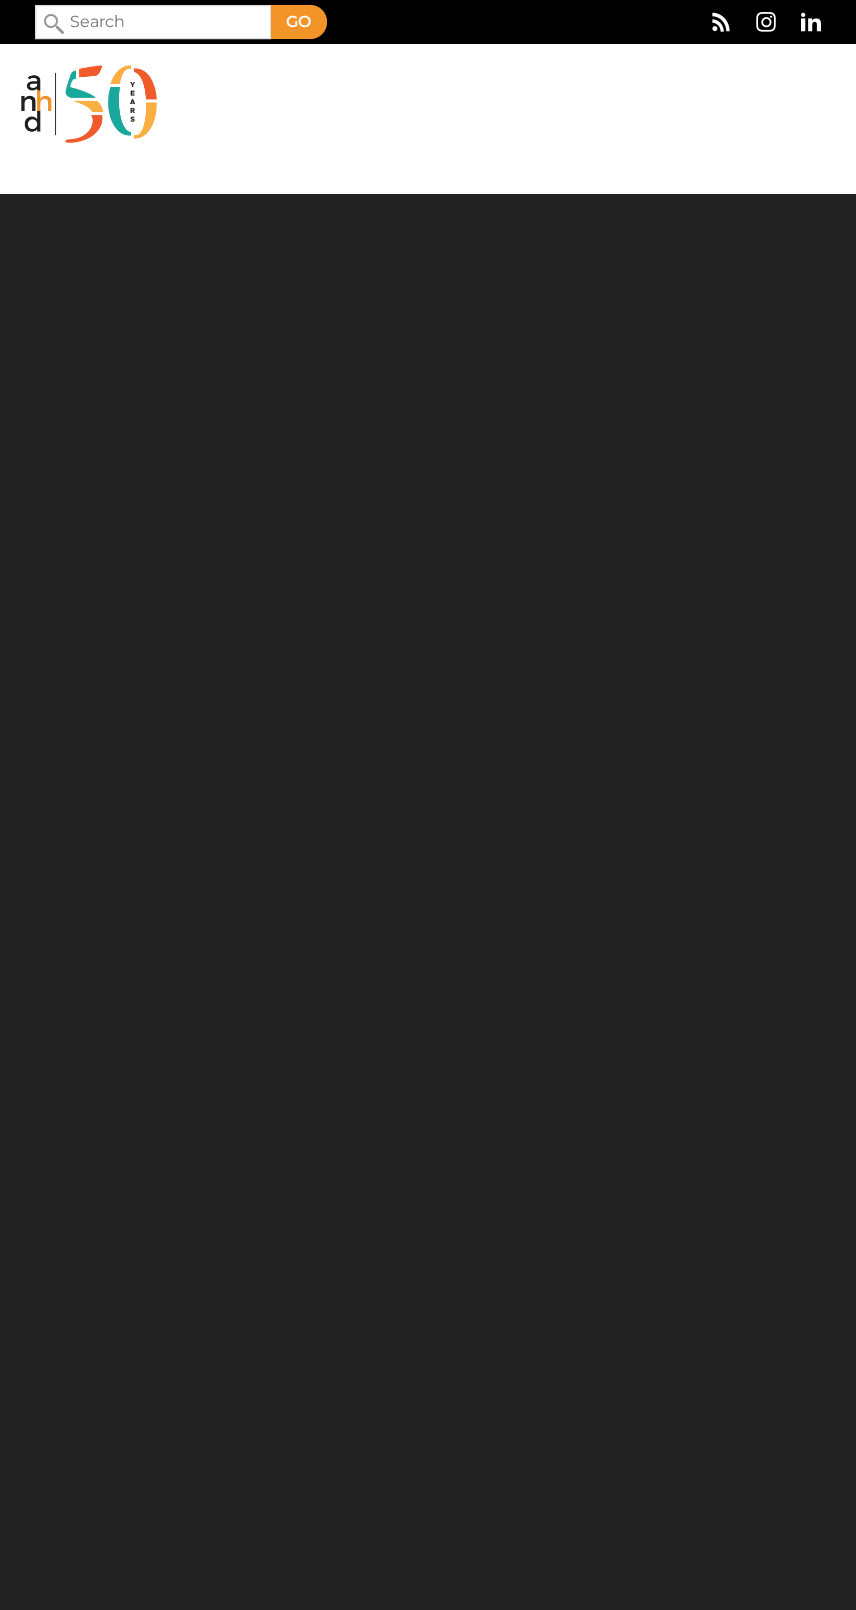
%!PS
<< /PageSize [856 1610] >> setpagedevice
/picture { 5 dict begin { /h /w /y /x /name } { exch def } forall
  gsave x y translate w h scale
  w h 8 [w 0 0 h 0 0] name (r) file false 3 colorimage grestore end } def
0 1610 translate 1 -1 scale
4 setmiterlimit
0.133 setgray
0 0 856 1610 rectfill
1 setgray
0 44 856 150 rectfill
0 setgray
0 0 856 44 rectfill
1 setgray
36 6 234 32 rectfill
(img1.rgb) 44 14 20 20 picture
0.867 setgray
35.5 5.5 235 33 rectstroke
/Montserrat-Regular [16 0 0 -16 0 0] selectfont
0.459 setgray
70 27 moveto (Search) show
0.949 0.58 0.157 setrgbcolor
newpath 271 5 moveto 310 5 lineto 319.5 5 327 12.5 327 22 curveto 327 31.5 319.5 39 310 39 curveto 271 39 lineto closepath fill
/Montserrat-SemiBold [16 0 0 -16 0 0] selectfont
1 setgray
286 27 moveto (GO) show
(img2.rgb) 712 12 18 20 picture
(img3.rgb) 756 12 20 20 picture
(img4.rgb) 801 12 20 20 picture
(img5.rgb) 21 65 136 78 picture
showpage
